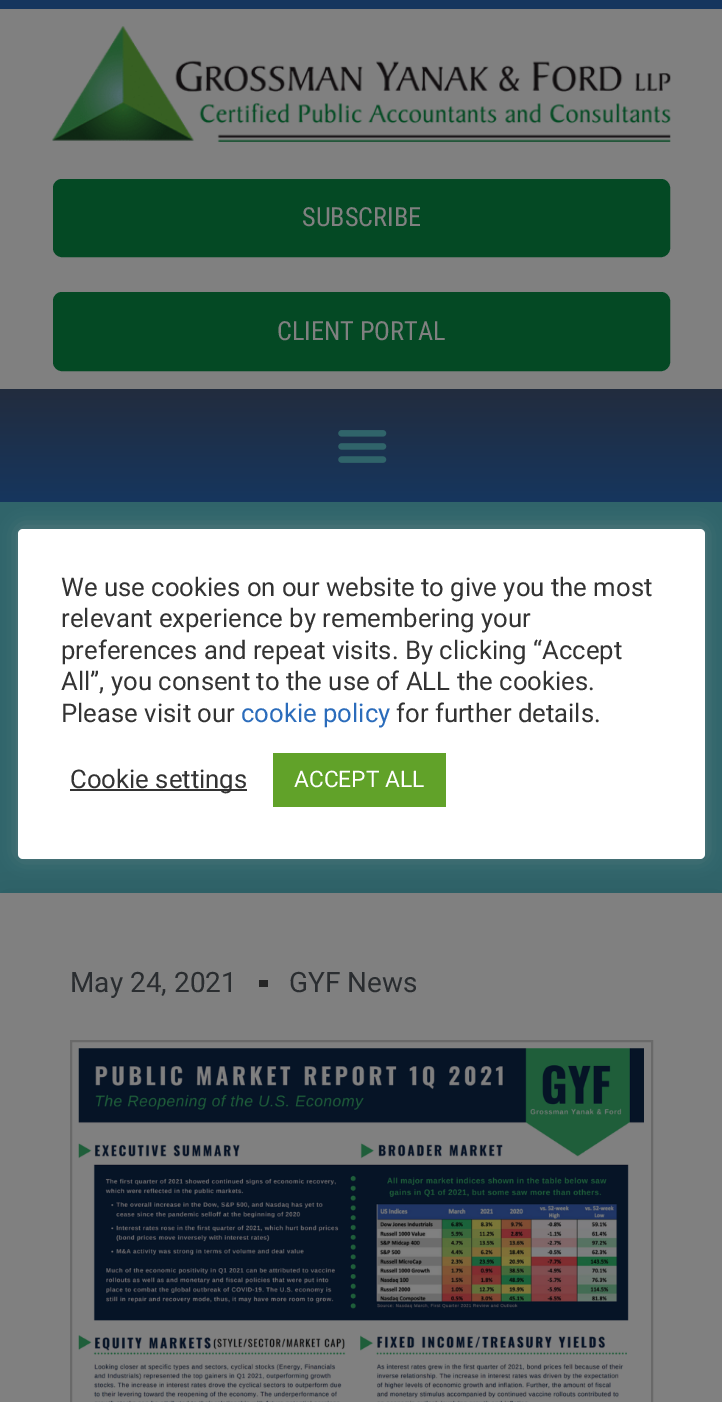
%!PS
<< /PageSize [722 1402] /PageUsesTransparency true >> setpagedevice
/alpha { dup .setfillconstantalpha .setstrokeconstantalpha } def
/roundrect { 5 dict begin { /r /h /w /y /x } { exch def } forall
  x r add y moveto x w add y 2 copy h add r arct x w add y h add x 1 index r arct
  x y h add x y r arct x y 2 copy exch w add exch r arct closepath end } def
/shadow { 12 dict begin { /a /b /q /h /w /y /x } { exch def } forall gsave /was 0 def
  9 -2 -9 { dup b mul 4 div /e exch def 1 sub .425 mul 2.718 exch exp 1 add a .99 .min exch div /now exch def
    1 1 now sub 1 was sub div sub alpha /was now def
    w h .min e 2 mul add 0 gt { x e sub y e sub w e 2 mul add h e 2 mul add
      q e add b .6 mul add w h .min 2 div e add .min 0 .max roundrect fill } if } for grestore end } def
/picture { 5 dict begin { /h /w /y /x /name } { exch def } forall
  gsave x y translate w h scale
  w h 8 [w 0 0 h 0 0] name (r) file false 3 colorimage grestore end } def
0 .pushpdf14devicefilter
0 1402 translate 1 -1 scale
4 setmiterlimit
0.502 setgray
0 0 722 1402 rectfill
0.086 0.212 0.369 setrgbcolor
0 0 722 9 rectfill
(img1.rgb) 52 26 619 116 picture
0.016 0.286 0.141 setrgbcolor
55.5 181.5 612 73 6.5 roundrect gsave fill grestore
5 setlinewidth
stroke
/RobotoCondensed-Regular [26.25 0 0 -26.25 0 0] selectfont
0.502 setgray
302 226 moveto (SUBSCRIBE) show
0.016 0.286 0.141 setrgbcolor
55.5 294.5 612 74 6.5 roundrect gsave fill grestore
stroke
0.502 setgray
277 340 moveto (CLIENT PORTAL) show
gsave newpath 0 389 moveto 722 389 lineto 722 502 lineto 0 502 lineto closepath clip newpath
<< /ShadingType 2 /ColorSpace /DeviceRGB /Coords [361 388 361 502] /Extend [true true] /Function << /FunctionType 2 /Domain [0 1] /C0 [0.133 0.173 0.243] /C1 [0.086 0.212 0.369] /N 1 >> >> shfill grestore
(img2.rgb) 338 430 49 33 picture
0.188 0.392 0.416 setrgbcolor
0 502 722 391 rectfill
0 setgray
0 893 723 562 0 17.5 0.09 shadow
0.502 setgray
0 893 722 509 rectfill
/Roboto-Regular [28 0 0 -28 0 0] selectfont
0.165 0.176 0.188 setrgbcolor
70 992 moveto (May 24, 2021) show
0.145 setgray
259 980 9 7 rectfill
0.165 0.176 0.188 setrgbcolor
289 992 moveto (GYF News) show
0.412 setgray
2 setlinewidth
71 1041 581 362 rectstroke
(img3.rgb) 78 1048 566 354 picture
0.675 0.671 0.671 setrgbcolor
18 527 687 331 5 9 0.3 shadow
1 setgray
18 529 687 330 5 roundrect fill
/Roboto-Regular [25.7 0 0 -25.7 0 0] selectfont
0.2 setgray
61 596 moveto (We use cookies on our website to give you the most) show
61 627 moveto (relevant experience by remembering your) show
61 659 moveto (preferences and repeat visits. By clicking “Accept) show
61 690 moveto (All”, you consent to the use of ALL the cookies.) show
61 722 moveto (Please visit our) show
0.169 0.424 0.733 setrgbcolor
241 722 moveto (cookie policy) show
0.2 setgray
396 722 moveto (for further details.) show
70 789 177 2 rectfill
70 788 moveto (Cookie settings) show
0.38 0.635 0.161 setrgbcolor
273 753 173 54 rectfill
/Roboto-Regular [22.75 0 0 -22.75 0 0] selectfont
1 setgray
294 787 moveto (ACCEPT ALL) show
.poppdf14devicefilter showpage
